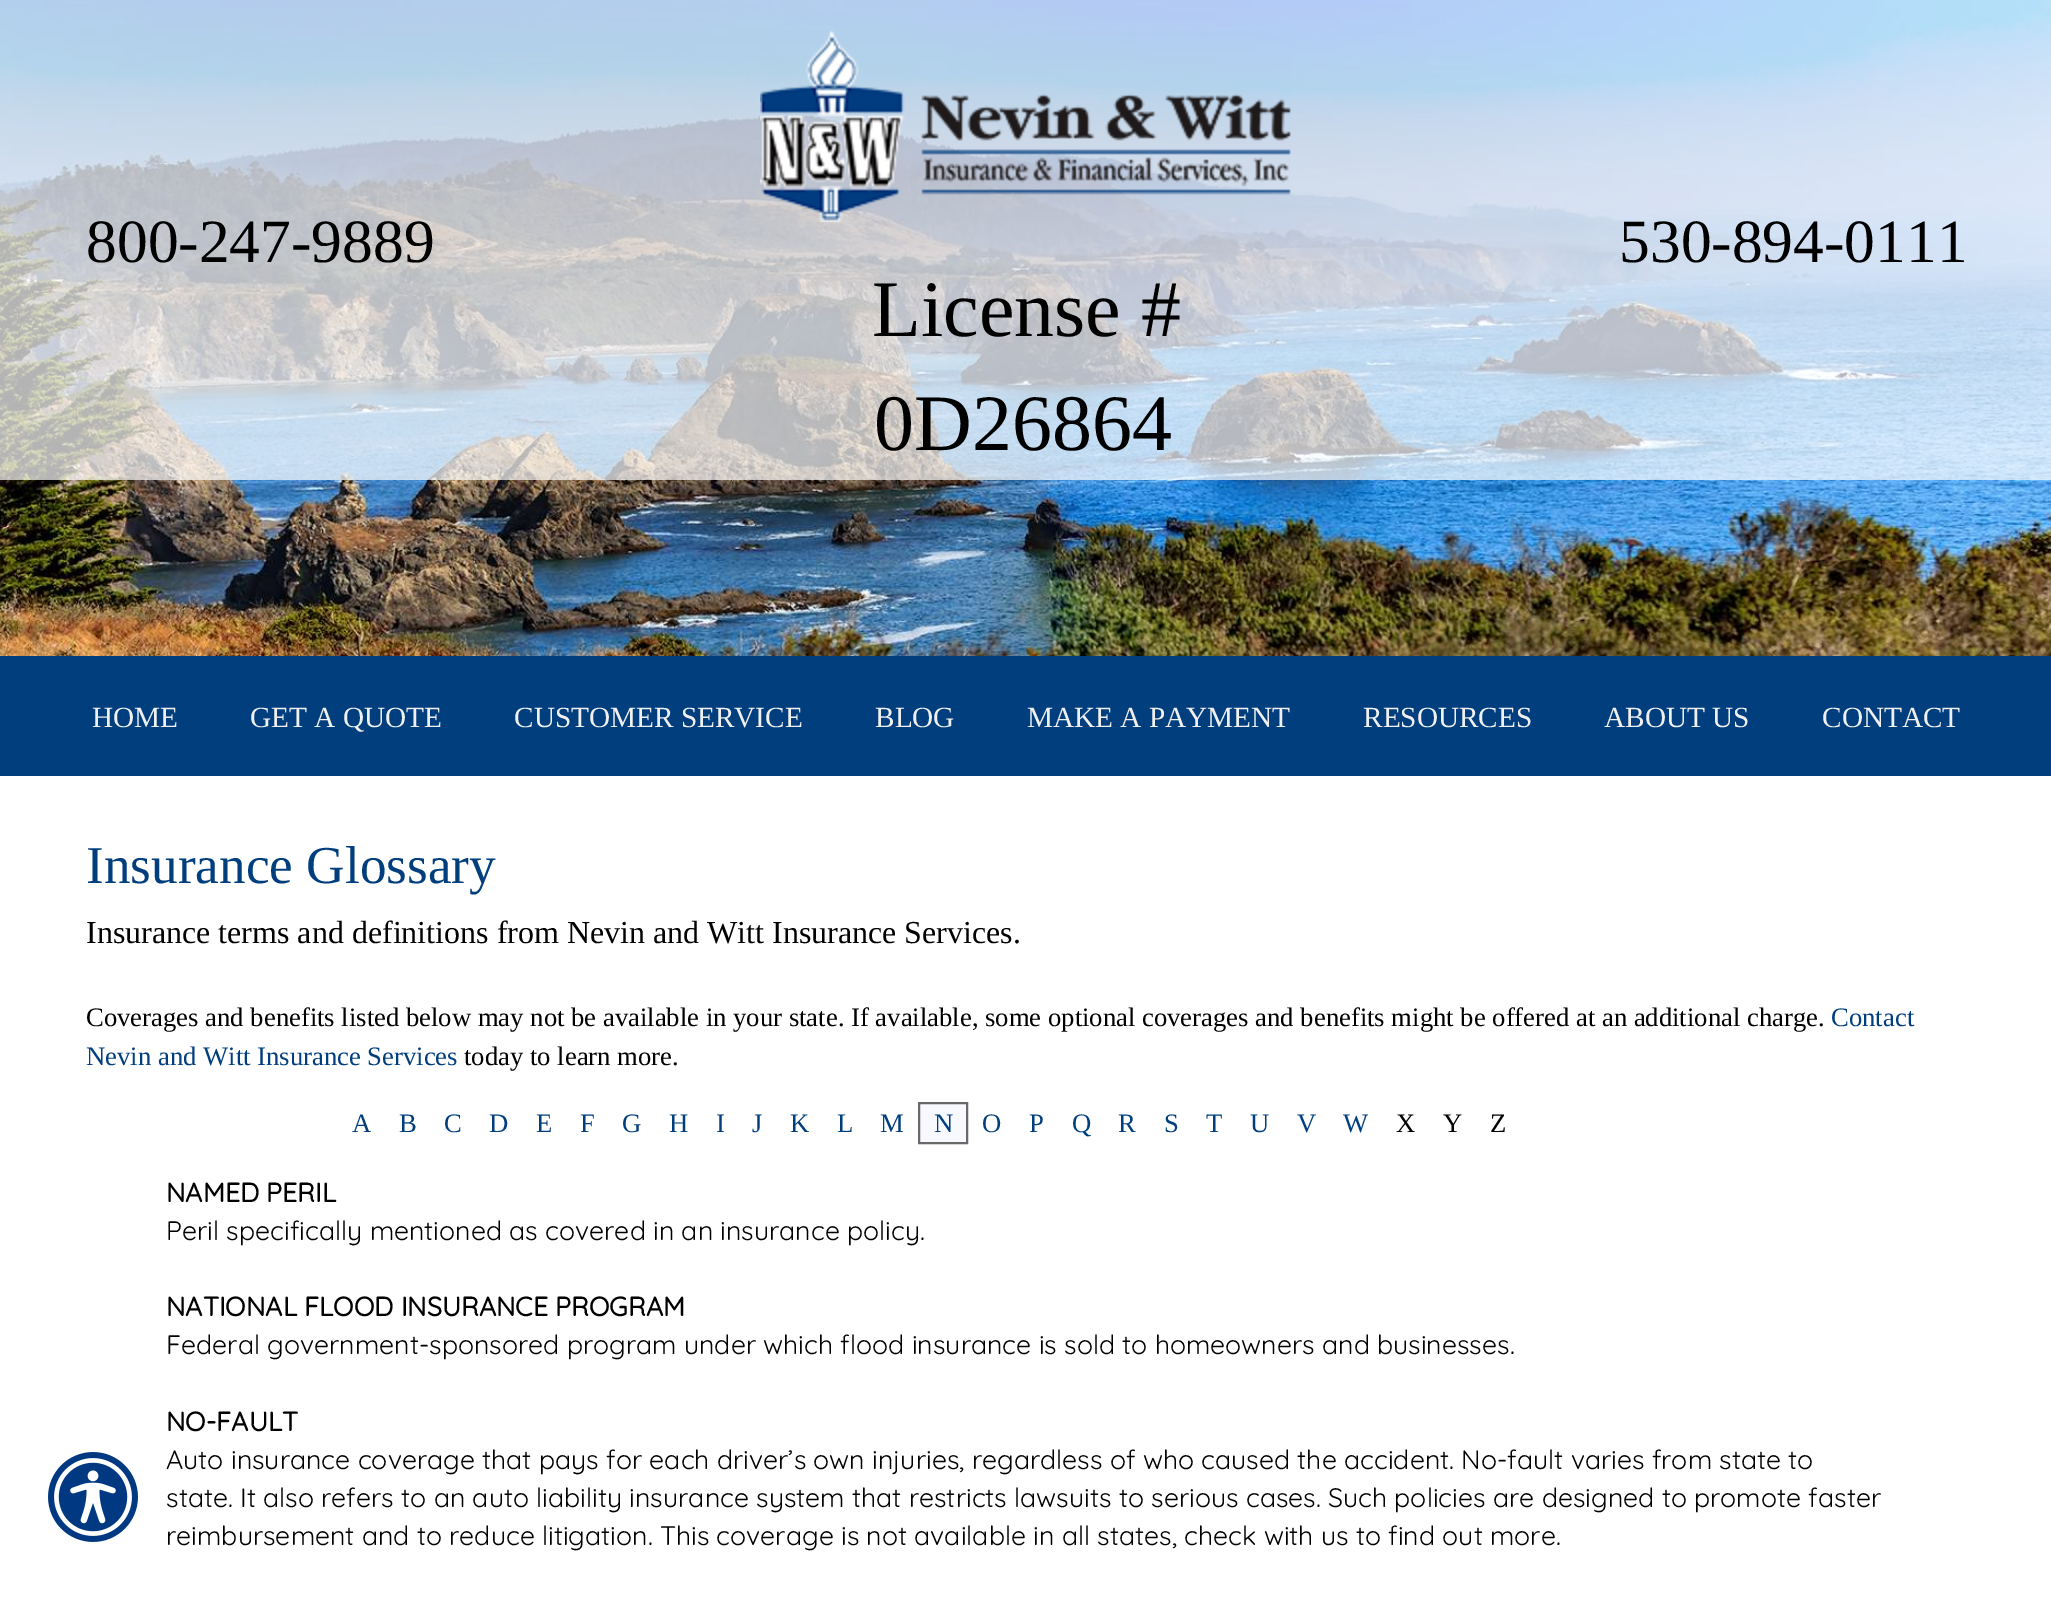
%!PS
<< /PageSize [2051 1599] /PageUsesTransparency true >> setpagedevice
/alpha { dup .setfillconstantalpha .setstrokeconstantalpha } def
/picture { 5 dict begin { /h /w /y /x /name } { exch def } forall
  gsave x y translate w h scale
  w h 8 [w 0 0 h 0 0] name (r) file false 3 colorimage grestore end } def
0 .pushpdf14devicefilter
0 1599 translate 1 -1 scale
4 setmiterlimit
1 setgray
0 0 2051 1599 rectfill
(img1.rgb) 0 0 2051 656 picture
0.7 alpha
0 0 2051 480 rectfill
/LiberationSerif-Regular [61.5 0 0 -61.5 0 0] selectfont
1 alpha
0 setgray
86 262 moveto (800-247-9889) show
1619 262 moveto (530-894-0111) show
(img2.rgb) 760 30 531 192 picture
/LiberationSerif-Regular [80 0 0 -80 0 0] selectfont
872 336 moveto (License #) show
874 450 moveto (0D26864) show
0 0.243 0.494 setrgbcolor
0 656 2051 120 rectfill
/LiberationSerif-Regular [29.25 0 0 -29.25 0 0] selectfont
0.941 setgray
92 727 moveto (HOME) show
250 727 moveto (GET A QUOTE) show
514 727 moveto (CUSTOMER SERVICE) show
875 727 moveto (BLOG) show
1027 727 moveto (MAKE A PAYMENT) show
1363 727 moveto (RESOURCES) show
1604 727 moveto (ABOUT US) show
1822 727 moveto (CONTACT) show
/LiberationSerif-Regular [53.25 0 0 -53.25 0 0] selectfont
0 0.243 0.494 setrgbcolor
86 883 moveto (Insurance Glossary) show
/LiberationSerif-Regular [32 0 0 -32 0 0] selectfont
0 setgray
86 943 moveto (Insurance terms and definitions from Nevin and Witt Insurance Services.) show
/LiberationSerif-Regular [26.67 0 0 -26.67 0 0] selectfont
86 1026 moveto (Coverages and benefits listed below may not be available in your state.) show
851 1026 moveto (If available, some optional coverages and benefits might be offered at an additional charge.) show
0 0.243 0.494 setrgbcolor
1831 1026 moveto (Contact) show
86 1065 moveto (Nevin and Witt Insurance Services) show
0 setgray
464 1065 moveto (today to learn more.) show
0 0.243 0.494 setrgbcolor
352 1132 moveto (A) show
399 1132 moveto (B) show
444 1132 moveto (C) show
489 1132 moveto (D) show
536 1132 moveto (E) show
580 1132 moveto (F) show
622 1132 moveto (G) show
669 1132 moveto (H) show
716 1132 moveto (I) show
752 1132 moveto (J) show
790 1132 moveto (K) show
837 1132 moveto (L) show
880 1132 moveto (M) show
0.973 0.973 1 setrgbcolor
newpath 919 1103 moveto 967 1103 lineto 967 1143 lineto 919 1143 lineto closepath gsave fill grestore
0.412 setgray
2 setlinewidth
stroke
0 0.243 0.494 setrgbcolor
934 1132 moveto (N) show
982 1132 moveto (O) show
1029 1132 moveto (P) show
1072 1132 moveto (Q) show
1118 1132 moveto (R) show
1164 1132 moveto (S) show
1206 1132 moveto (T) show
1250 1132 moveto (U) show
1297 1132 moveto (V) show
1343 1132 moveto (W) show
0 setgray
1396 1132 moveto (X) show
1443 1132 moveto (Y) show
1490 1132 moveto (Z) show
/Quicksand-Bold [26.67 0 0 -26.67 0 0] selectfont
166 1202 moveto (NAMED PERIL) show
/Quicksand-Light [26.67 0 0 -26.67 0 0] selectfont
166 1240 moveto (Peril specifically mentioned as covered in an insurance policy.) show
/Quicksand-Bold [26.67 0 0 -26.67 0 0] selectfont
166 1316 moveto (NATIONAL FLOOD INSURANCE PROGRAM) show
/Quicksand-Light [26.67 0 0 -26.67 0 0] selectfont
166 1354 moveto (Federal government-sponsored program under which flood insurance is sold to homeowners and businesses.) show
/Quicksand-Bold [26.67 0 0 -26.67 0 0] selectfont
166 1431 moveto (NO-FAULT) show
/Quicksand-Light [26.67 0 0 -26.67 0 0] selectfont
166 1469 moveto (Auto insurance coverage that pays for each driver’s own injuries, regardless of who caused the accident. No-fault varies from state to) show
166 1507 moveto (state. It also refers to an auto liability insurance system that restricts lawsuits to serious cases. Such policies are designed to promote faster) show
166 1545 moveto (reimbursement and to reduce litigation. This coverage is not available in all states, check with us to find out more.) show
(img3.rgb) 48 1452 90 90 picture
.poppdf14devicefilter showpage
